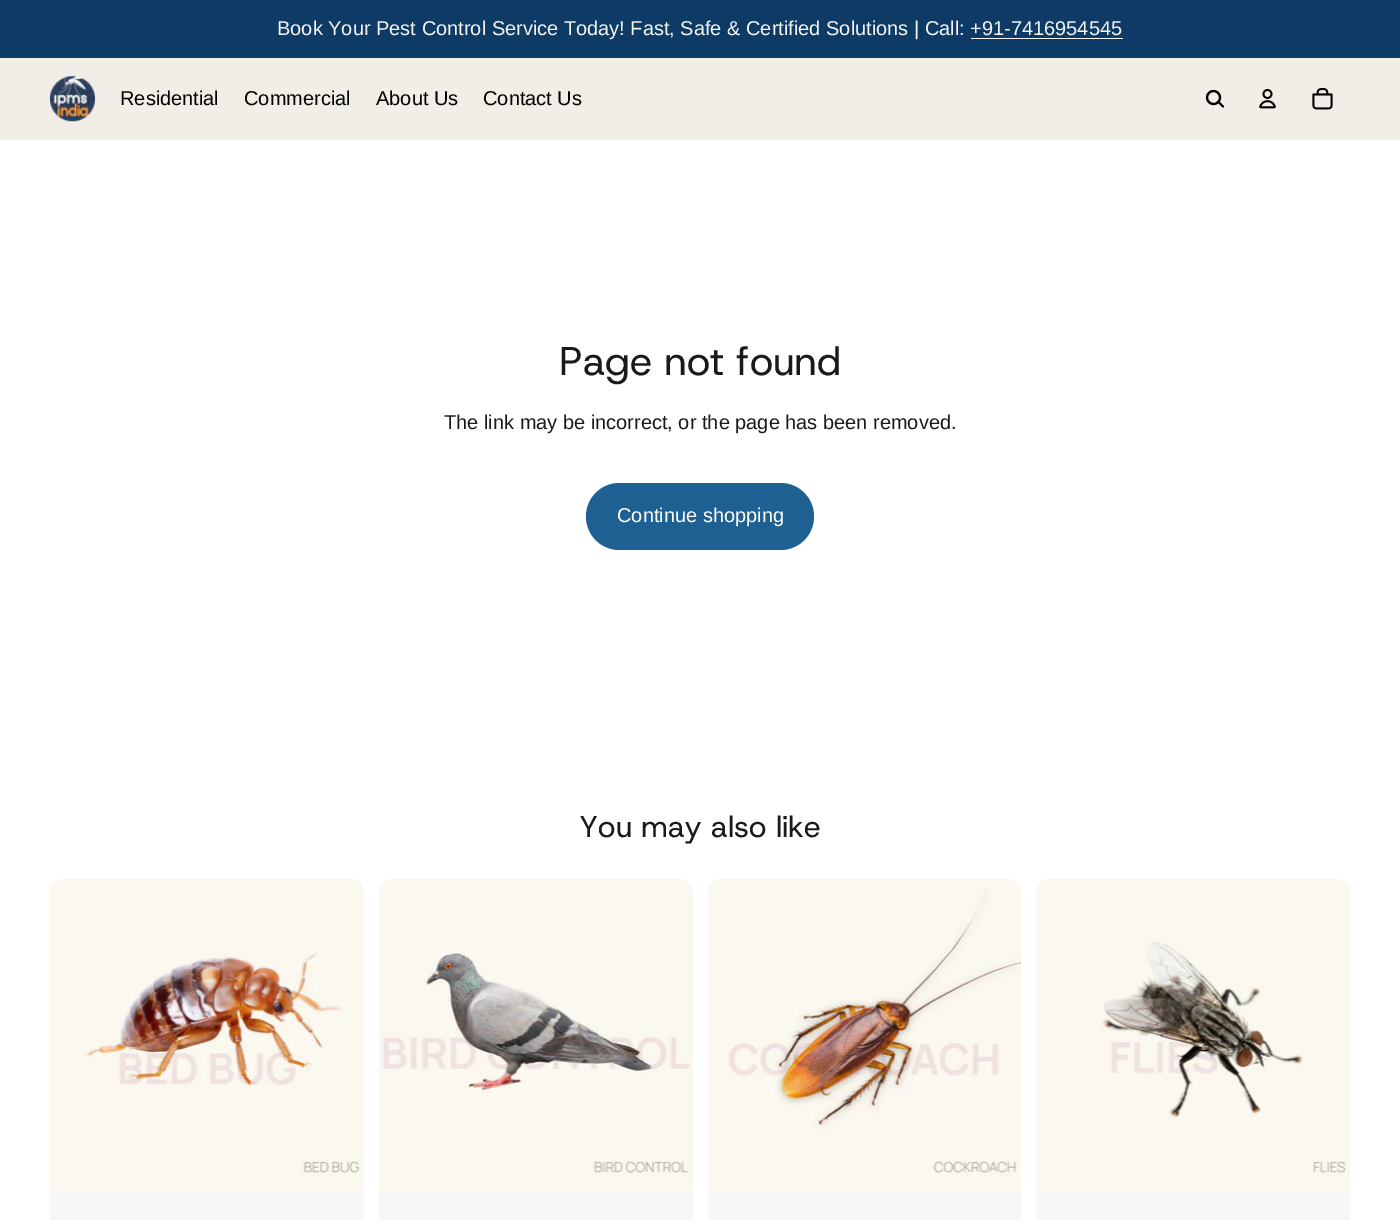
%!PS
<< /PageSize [1400 1220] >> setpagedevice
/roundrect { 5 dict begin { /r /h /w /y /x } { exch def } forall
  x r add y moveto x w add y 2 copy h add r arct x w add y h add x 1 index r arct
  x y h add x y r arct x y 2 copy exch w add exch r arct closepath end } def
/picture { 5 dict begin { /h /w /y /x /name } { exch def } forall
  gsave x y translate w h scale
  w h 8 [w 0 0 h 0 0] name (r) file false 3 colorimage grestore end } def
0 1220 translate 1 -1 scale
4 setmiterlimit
1 setgray
0 0 1400 1220 rectfill
0.051 0.231 0.4 setrgbcolor
0 0 1400 58 rectfill
/LiberationSans-Regular [20 0 0 -20 0 0] selectfont
0.961 0.957 0.957 setrgbcolor
277 35 moveto (Book Your Pest Control Service Today! Fast, Safe & Certified Solutions | Call: +91-7416954545) show
971 38 152 1 rectfill
0.945 0.929 0.906 setrgbcolor
0 58 1400 82 rectfill
(img1.rgb) 50 76 45 46 picture
0 setgray
120 105 moveto (Residential) show
244 105 moveto (Commercial) show
376 105 moveto (About Us) show
483 105 moveto (Contact Us) show
2.1 setlinewidth
newpath 1213.5 97.5 6.5 0 360 arc closepath stroke
1 setlinecap
1 setlinejoin
newpath 1218.5 102 moveto 1223 106.5 lineto stroke
(img2.rgb) 1259 88 17 21 picture
(img3.rgb) 1312 88 21 22 picture
/HostGrotesk-Regular [40 0 0 -40 0 0] selectfont
0.102 setgray
559 375 moveto (Page not found) show
/LiberationSans-Regular [20 0 0 -20 0 0] selectfont
444 429 moveto (The link may be incorrect, or the page has been removed.) show
0.118 0.376 0.569 setrgbcolor
586 483 228 67 33.5 roundrect fill
1 0.996 0.996 setrgbcolor
617 522 moveto (Continue shopping) show
/HostGrotesk-Regular [30 0 0 -30 0 0] selectfont
0.102 setgray
579 837 moveto (You may also like) show
0.969 setgray
50 879 314 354 13 roundrect fill
(img4.rgb) 50 879 314 314 picture
379 879 314 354 13 roundrect fill
(img5.rgb) 379 879 313 314 picture
708 879 313 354 13 roundrect fill
(img6.rgb) 707 879 315 314 picture
1036 879 314 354 13 roundrect fill
(img7.rgb) 1036 879 314 314 picture
showpage
